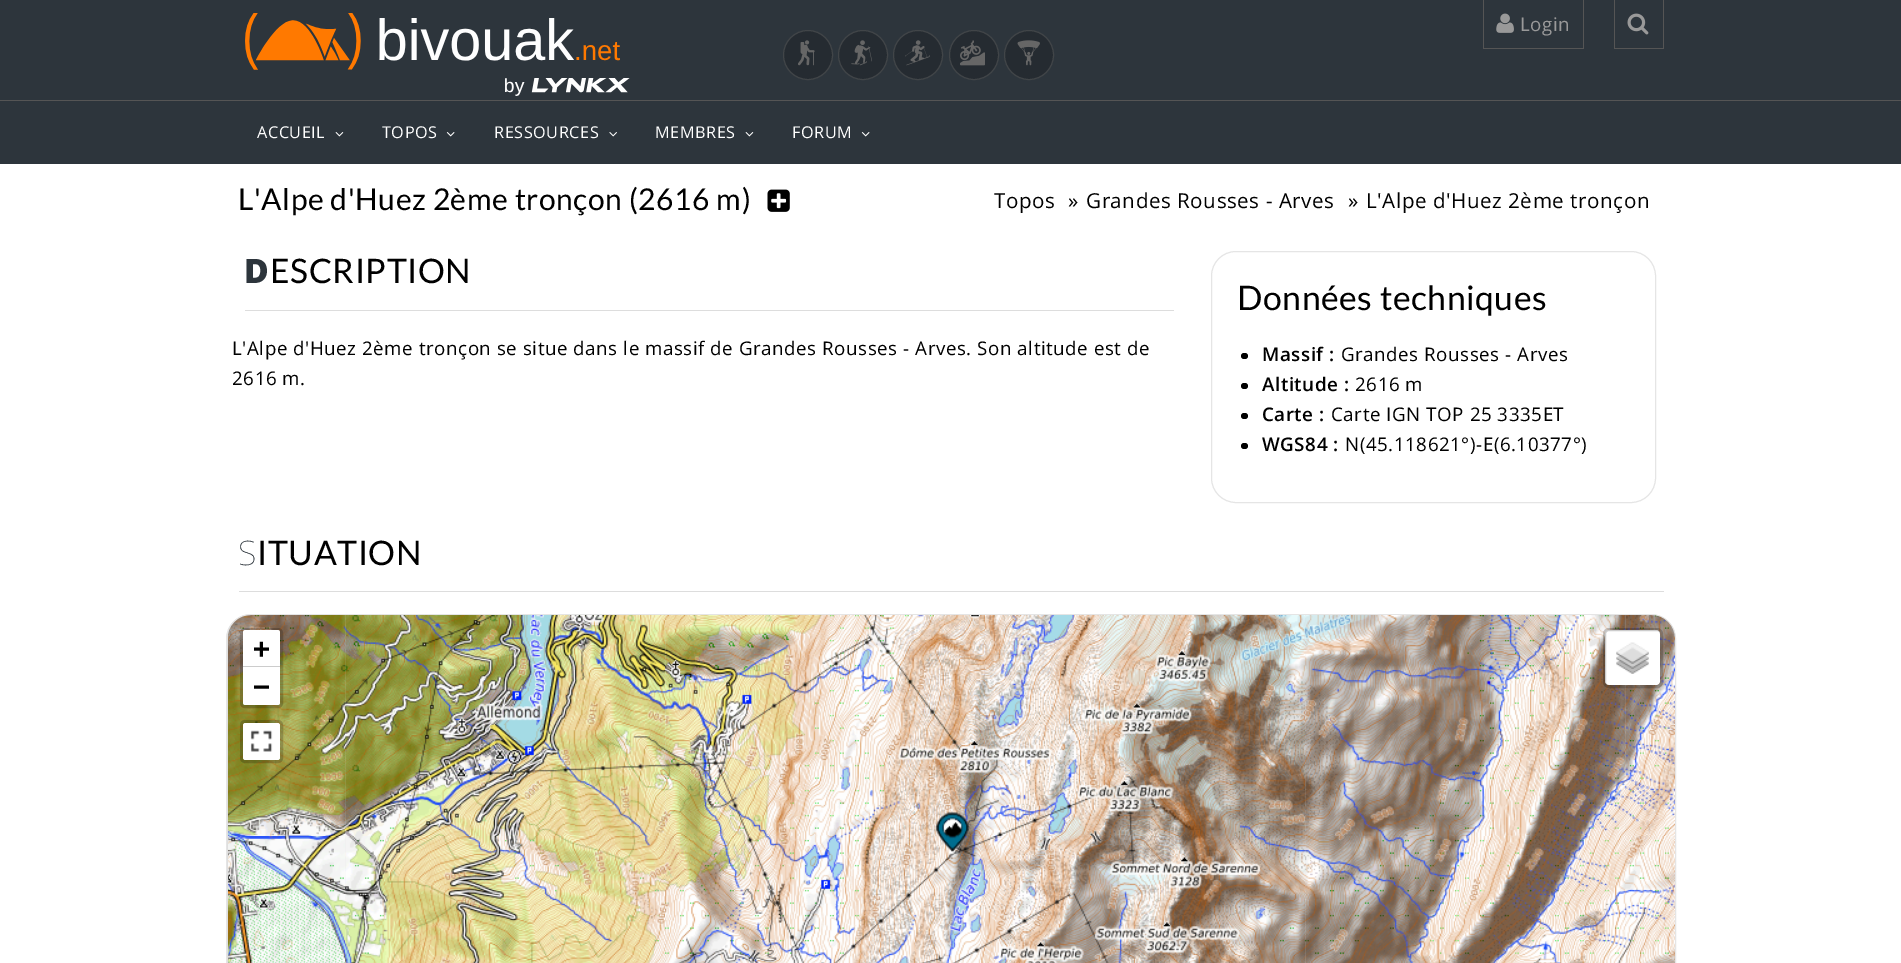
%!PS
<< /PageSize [1901 963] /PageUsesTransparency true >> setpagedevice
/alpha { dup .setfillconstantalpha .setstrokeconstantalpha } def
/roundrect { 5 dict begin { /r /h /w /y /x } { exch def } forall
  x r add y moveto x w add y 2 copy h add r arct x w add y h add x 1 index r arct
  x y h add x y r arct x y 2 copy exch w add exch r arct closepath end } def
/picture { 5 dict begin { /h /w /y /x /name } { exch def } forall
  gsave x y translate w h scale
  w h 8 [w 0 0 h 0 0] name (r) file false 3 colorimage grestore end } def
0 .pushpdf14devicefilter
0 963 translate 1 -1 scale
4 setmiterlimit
1 setgray
0 0 1901 963 rectfill
0.176 0.208 0.235 setrgbcolor
0 0 1901 100 rectfill
(img1.rgb) 245 13 375 57 picture
(img2.rgb) 505 78 125 18 picture
0.145 0.169 0.192 setrgbcolor
newpath 808 55 24.5 0 360 arc closepath gsave fill grestore
0.255 0.271 0.282 setrgbcolor
stroke
(img3.rgb) 798 40 17 26 picture
0.145 0.169 0.192 setrgbcolor
newpath 863 55 24.5 0 360 arc closepath gsave fill grestore
0.255 0.271 0.282 setrgbcolor
stroke
(img4.rgb) 851 40 21 26 picture
0.145 0.169 0.192 setrgbcolor
newpath 918 55 24.5 0 360 arc closepath gsave fill grestore
0.255 0.271 0.282 setrgbcolor
stroke
(img5.rgb) 905 40 25 26 picture
0.145 0.169 0.192 setrgbcolor
newpath 974 55 24.5 0 360 arc closepath gsave fill grestore
0.255 0.271 0.282 setrgbcolor
stroke
(img6.rgb) 960 40 25 26 picture
0.145 0.169 0.192 setrgbcolor
newpath 1029 55 24.5 0 360 arc closepath gsave fill grestore
0.255 0.271 0.282 setrgbcolor
stroke
(img7.rgb) 1017 40 23 26 picture
0.333 setgray
1583 0 1 49 rectfill
1483 48 101 1 rectfill
1483 0 1 49 rectfill
(img8.rgb) 1496 13 18 20 picture
/OpenSans-Regular [18.75 0 0 -18.75 0 0] selectfont
0.6 setgray
1520 31 moveto 0.55 0 (Login) ashow
0.333 setgray
1663 0 1 49 rectfill
1614 48 50 1 rectfill
1614 0 1 49 rectfill
(img9.rgb) 1627 13 22 22 picture
0.176 0.208 0.235 setrgbcolor
0 101 1901 63 rectfill
0.333 setgray
0 100 1901 1 rectfill
/OpenSans-Regular [16.25 0 0 -16.25 0 0] selectfont
1 setgray
257 138 moveto 0.55 0 (ACCUEIL) ashow
(img10.rgb) 335 132 9 5 picture
382 138 moveto 0.55 0 (TOPOS) ashow
(img11.rgb) 446 132 9 5 picture
494 138 moveto 0.55 0 (RESSOURCES) ashow
(img12.rgb) 609 132 8 5 picture
655 138 moveto 0.55 0 (MEMBRES) ashow
(img10.rgb) 745 132 9 5 picture
792 138 moveto 0.55 0 (FORUM) ashow
(img11.rgb) 861 132 9 5 picture
/Lato-Regular [30 0 0 -30 0 0] selectfont
0 setgray
238 210 moveto 0.55 0 (L'Alpe d'Huez 2ème tronçon \(2616 m\)) ashow
(img13.rgb) 767 189 23 23 picture
/OpenSans-Regular [20.6 0 0 -20.6 0 0] selectfont
994 208 moveto 0.55 0 (Topos) ashow
1068 208 moveto 0.55 0 (») ashow
1086 208 moveto 0.55 0 (Grandes Rousses - Arves) ashow
1348 208 moveto 0.55 0 (») ashow
1366 208 moveto 0.55 0 (L'Alpe d'Huez 2ème tronçon) ashow
0.867 setgray
245 310 929 1 rectfill
/NotoSans-Black [33.75 0 0 -33.75 0 0] selectfont
0.176 0.208 0.235 setrgbcolor
244 283 moveto 0.55 0 (D) ashow
/Lato-Regular [33.75 0 0 -33.75 0 0] selectfont
0 setgray
270 283 moveto 0.55 0 (ESCRIPTION) ashow
/OpenSans-Regular [18.75 0 0 -18.75 0 0] selectfont
232 355 moveto 0.55 0 (L'Alpe d'Huez 2ème tronçon se situe dans le massif de Grandes Rousses - Arves. Son altitude est de) ashow
232 385 moveto 0.55 0 (2616 m.) ashow
0.898 setgray
1211.5 251.5 444 251 24.5 roundrect stroke
/Lato-Regular [33.75 0 0 -33.75 0 0] selectfont
0 setgray
1237 310 moveto 0.55 0 (Données techniques) ashow
1241 353 7 6 3 roundrect fill
/OpenSans-SemiBold [18.75 0 0 -18.75 0 0] selectfont
1262 361 moveto 0.55 0 (Massif :) ashow
/OpenSans-Regular [18.75 0 0 -18.75 0 0] selectfont
1341 361 moveto 0.55 0 (Grandes Rousses - Arves) ashow
1241 383 7 6 3 roundrect fill
/OpenSans-SemiBold [18.75 0 0 -18.75 0 0] selectfont
1262 391 moveto 0.55 0 (Altitude :) ashow
/OpenSans-Regular [18.75 0 0 -18.75 0 0] selectfont
1355 391 moveto 0.55 0 (2616 m) ashow
1241 413 7 6 3 roundrect fill
/OpenSans-SemiBold [18.75 0 0 -18.75 0 0] selectfont
1262 421 moveto 0.55 0 (Carte :) ashow
/OpenSans-Regular [18.75 0 0 -18.75 0 0] selectfont
1331 421 moveto 0.55 0 (Carte IGN TOP 25 3335ET) ashow
1241 443 7 6 3 roundrect fill
/OpenSans-SemiBold [18.75 0 0 -18.75 0 0] selectfont
1262 451 moveto 0.55 0 (WGS84 :) ashow
/OpenSans-Regular [18.75 0 0 -18.75 0 0] selectfont
1345 451 moveto 0.55 0 (N\(45.118621°\)-E\(6.10377°\)) ashow
0.867 setgray
239 591 1425 1 rectfill
/NotoSans-Thin [33.75 0 0 -33.75 0 0] selectfont
0.176 0.208 0.235 setrgbcolor
238 565 moveto 0.55 0 (S) ashow
/Lato-Regular [33.75 0 0 -33.75 0 0] selectfont
0 setgray
257 565 moveto 0.55 0 (ITUATION) ashow
0.867 setgray
226.5 614.5 1449 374 24.5 roundrect gsave fill grestore
0.898 setgray
stroke
(img14.rgb) 228 615 117 221 picture
(img15.rgb) 345 615 320 222 picture
(img16.rgb) 665 615 320 222 picture
(img17.rgb) 984 615 321 222 picture
(img22.rgb) 665 836 320 127 picture
(img23.rgb) 984 836 321 127 picture
(img18.rgb) 1304 615 321 222 picture
(img24.rgb) 1304 836 321 127 picture
(img19.rgb) 1624 615 51 222 picture
(img20.rgb) 228 836 117 127 picture
(img21.rgb) 345 836 320 127 picture
(img25.rgb) 1624 836 51 127 picture
(img26.rgb) 936 812 33 40 picture
0.2 alpha
0 setgray
3 setlinewidth
241.5 629.5 40 77 3.5 roundrect stroke
1 alpha
1 setgray
newpath 245.5 630 moveto 277.5 630 lineto 279 630 280 631 280 632.5 curveto 280 668 lineto 243 668 lineto 243 632.5 lineto 243 631 244 630 245.5 630 curveto closepath fill
0.8 setgray
243 666 37 1 rectfill
/DejaVuSansMono-Bold [28 0 0 -28 0 0] selectfont
0 setgray
253 658 moveto 0.55 0 (+) ashow
1 setgray
newpath 243 668 moveto 280 668 lineto 280 702.5 lineto 280 704 279 705 277.5 705 curveto 245.5 705 lineto 244 705 243 704 243 702.5 curveto closepath fill
0 setgray
253 696 moveto 0.55 0 (−) ashow
0.2 alpha
241.5 721.5 40 40 3.5 roundrect stroke
1 alpha
1 setgray
243 723 37 37 2.5 roundrect fill
(img27.rgb) 250 730 23 22 picture
1605 630 55 55 4 roundrect fill
0.2 alpha
0 setgray
1604.5 629.5 57 57 4.5 roundrect stroke
1 alpha
(img28.rgb) 1616 642 33 32 picture
.poppdf14devicefilter showpage
